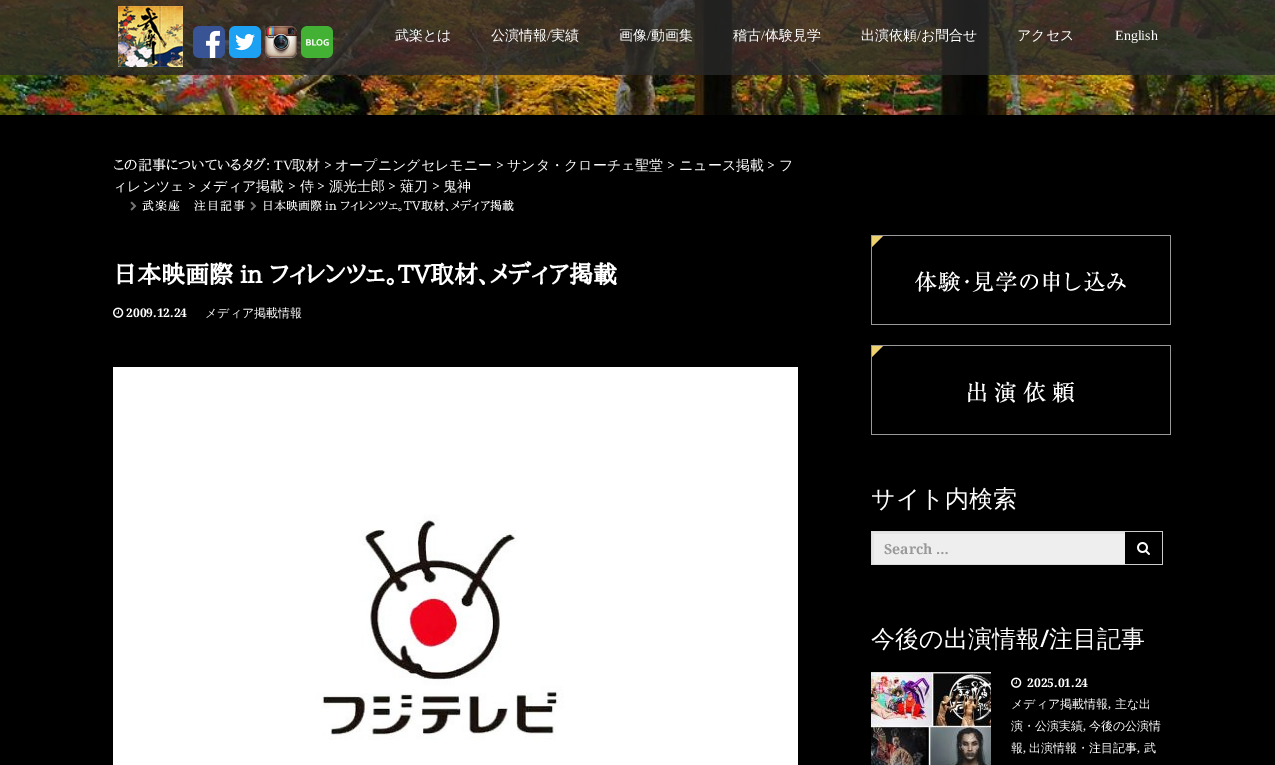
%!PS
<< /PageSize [1275 765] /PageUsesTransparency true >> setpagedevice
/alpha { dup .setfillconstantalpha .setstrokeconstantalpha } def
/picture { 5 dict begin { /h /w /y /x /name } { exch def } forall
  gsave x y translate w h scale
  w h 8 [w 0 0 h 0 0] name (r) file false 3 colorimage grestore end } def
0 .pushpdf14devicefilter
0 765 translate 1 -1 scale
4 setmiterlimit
0 setgray
0 0 1275 765 rectfill
(img1.rgb) 0 0 1275 115 picture
0.8 alpha
0.157 setgray
0 0 1275 75 rectfill
1 alpha
(img2.rgb) 118 6 65 61 picture
(img3.rgb) 193 26 32 32 picture
(img4.rgb) 229 26 32 32 picture
(img5.rgb) 265 26 32 32 picture
(img6.rgb) 301 26 32 32 picture
/WenQuanYiZenHei-Medium [14 0 0 -14 0 0] selectfont
1 setgray
395 40 moveto (武楽とは) show
491 40 moveto (公演情報) show
/LiberationSerif-Regular [14 0 0 -14 0 0] selectfont
547 40 moveto (/) show
/WenQuanYiZenHei-Medium [14 0 0 -14 0 0] selectfont
551 40 moveto (実績) show
619 40 moveto (画像) show
/LiberationSerif-Regular [14 0 0 -14 0 0] selectfont
647 40 moveto (/) show
/WenQuanYiZenHei-Medium [14 0 0 -14 0 0] selectfont
651 40 moveto (動画集) show
733 40 moveto (稽古) show
/LiberationSerif-Regular [14 0 0 -14 0 0] selectfont
761 40 moveto (/) show
/WenQuanYiZenHei-Medium [14 0 0 -14 0 0] selectfont
765 40 moveto (体験見学) show
861 40 moveto (出演依頼) show
/LiberationSerif-Regular [14 0 0 -14 0 0] selectfont
917 40 moveto (/) show
/WenQuanYiZenHei-Medium [14 0 0 -14 0 0] selectfont
921 40 moveto (お問合せ) show
1017 40 moveto (アクセス) show
/LiberationSerif-Regular [14 0 0 -14 0 0] selectfont
1115 40 moveto (English) show
/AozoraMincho-Medium [14 0 0 -14 0 0] selectfont
113 170 moveto (この記事についているタグ:) show
/LiberationSerif-Regular [14 0 0 -14 0 0] selectfont
274 170 moveto (TV) show
/WenQuanYiZenHei-Medium [14 0 0 -14 0 0] selectfont
292 170 moveto (取材) show
/NotoSerif-Regular [14 0 0 -14 0 0] selectfont
324 170 moveto (>) show
/WenQuanYiZenHei-Medium [14 0 0 -14 0 0] selectfont
335 170 moveto (オープニングセレモニー) show
/NotoSerif-Regular [14 0 0 -14 0 0] selectfont
496 170 moveto (>) show
/WenQuanYiZenHei-Medium [14 0 0 -14 0 0] selectfont
507 170 moveto (サンタ・クローチェ聖堂) show
/NotoSerif-Regular [14 0 0 -14 0 0] selectfont
667 170 moveto (>) show
/WenQuanYiZenHei-Medium [14 0 0 -14 0 0] selectfont
679 170 moveto (ニュース掲載) show
/NotoSerif-Regular [14 0 0 -14 0 0] selectfont
767 170 moveto (>) show
/WenQuanYiZenHei-Medium [14 0 0 -14 0 0] selectfont
779 170 moveto (フ) show
113 191 moveto (ィレンツェ) show
/NotoSerif-Regular [14 0 0 -14 0 0] selectfont
188 191 moveto (>) show
/WenQuanYiZenHei-Medium [14 0 0 -14 0 0] selectfont
199 191 moveto (メディア掲載) show
/NotoSerif-Regular [14 0 0 -14 0 0] selectfont
288 191 moveto (>) show
/WenQuanYiZenHei-Medium [14 0 0 -14 0 0] selectfont
300 191 moveto (侍) show
/NotoSerif-Regular [14 0 0 -14 0 0] selectfont
317 191 moveto (>) show
/WenQuanYiZenHei-Medium [14 0 0 -14 0 0] selectfont
329 191 moveto (源光士郎) show
/NotoSerif-Regular [14 0 0 -14 0 0] selectfont
388 191 moveto (>) show
/WenQuanYiZenHei-Medium [14 0 0 -14 0 0] selectfont
400 191 moveto (薙刀) show
/NotoSerif-Regular [14 0 0 -14 0 0] selectfont
432 191 moveto (>) show
/WenQuanYiZenHei-Medium [14 0 0 -14 0 0] selectfont
443 191 moveto (鬼神) show
(img7.rgb) 130 201 7 10 picture
/AozoraMincho-Medium [12 0 0 -12 0 0] selectfont
142 210 moveto 1 0 (武楽座　注目記事) ashow
(img7.rgb) 250 201 7 10 picture
262 210 moveto (日本映画際 in フィレンツェ。TV取材、メディア掲載) show
/AozoraMincho-Bold [24 0 0 -24 0 0] selectfont
113 283 moveto (日本映画際 in フィレンツェ。TV取材、メディア掲載) show
(img8.rgb) 113 307 11 11 picture
/NotoSerif-Bold [12 0 0 -12 0 0] selectfont
126 317 moveto (2009.12.24) show
/WenQuanYiZenHei-Medium [12 0 0 -12 0 0] selectfont
205 317 moveto (メディア掲載情報) show
(img9.rgb) 113 367 685 398 picture
(img10.rgb) 871 235 300 90 picture
(img11.rgb) 871 345 300 90 picture
/WenQuanYiZenHei-Medium [24 0 0 -24 0 0] selectfont
871 507 moveto (サイト内検索) show
0.933 setgray
874 534 251 30 rectfill
gsave
872 532 254 32 rectclip
0.898 setgray
newpath 773 433 moveto 1225 433 lineto 1225 663 lineto 773 663 lineto closepath 874 534 moveto 1128 534 lineto 1128 566 lineto 874 566 lineto closepath eofill
grestore
0.867 setgray
871 531 255 1 rectfill
871 564 255 1 rectfill
871 531 1 34 rectfill
/NotoSerif-Bold [14 0 0 -14 0 0] selectfont
0.6 setgray
884 554 moveto (Search …) show
0 setgray
1125 532 1 2 rectfill
0.8 setgray
1125 531 38 1 rectfill
1162 531 1 34 rectfill
1125 564 38 1 rectfill
(img12.rgb) 1137 542 13 13 picture
/WenQuanYiZenHei-Medium [24 0 0 -24 0 0] selectfont
1 setgray
871 647 moveto (今後の出演情報) show
/NotoSans-Medium [24 0 0 -24 0 0] selectfont
1040 647 moveto (/) show
/WenQuanYiZenHei-Medium [24 0 0 -24 0 0] selectfont
1049 647 moveto (注目記事) show
(img13.rgb) 871 672 120 93 picture
(img8.rgb) 1011 677 11 11 picture
/NotoSerif-Bold [12 0 0 -12 0 0] selectfont
1027 687 moveto (2025.01.24) show
/WenQuanYiZenHei-Medium [12 0 0 -12 0 0] selectfont
1011 708 moveto (メディア掲載情報) show
/NotoSerif-Regular [12 0 0 -12 0 0] selectfont
1108 708 moveto (,) show
/WenQuanYiZenHei-Medium [12 0 0 -12 0 0] selectfont
1115 708 moveto (主な出) show
1011 730 moveto (演・公演実績) show
/NotoSerif-Regular [12 0 0 -12 0 0] selectfont
1083 730 moveto (,) show
/WenQuanYiZenHei-Medium [12 0 0 -12 0 0] selectfont
1089 730 moveto (今後の公演情) show
1011 752 moveto (報) show
/NotoSerif-Regular [12 0 0 -12 0 0] selectfont
1023 752 moveto (,) show
/WenQuanYiZenHei-Medium [12 0 0 -12 0 0] selectfont
1029 752 moveto (出演情報・注目記事) show
/NotoSerif-Regular [12 0 0 -12 0 0] selectfont
1137 752 moveto (,) show
/WenQuanYiZenHei-Medium [12 0 0 -12 0 0] selectfont
1144 752 moveto (武) show
.poppdf14devicefilter showpage
